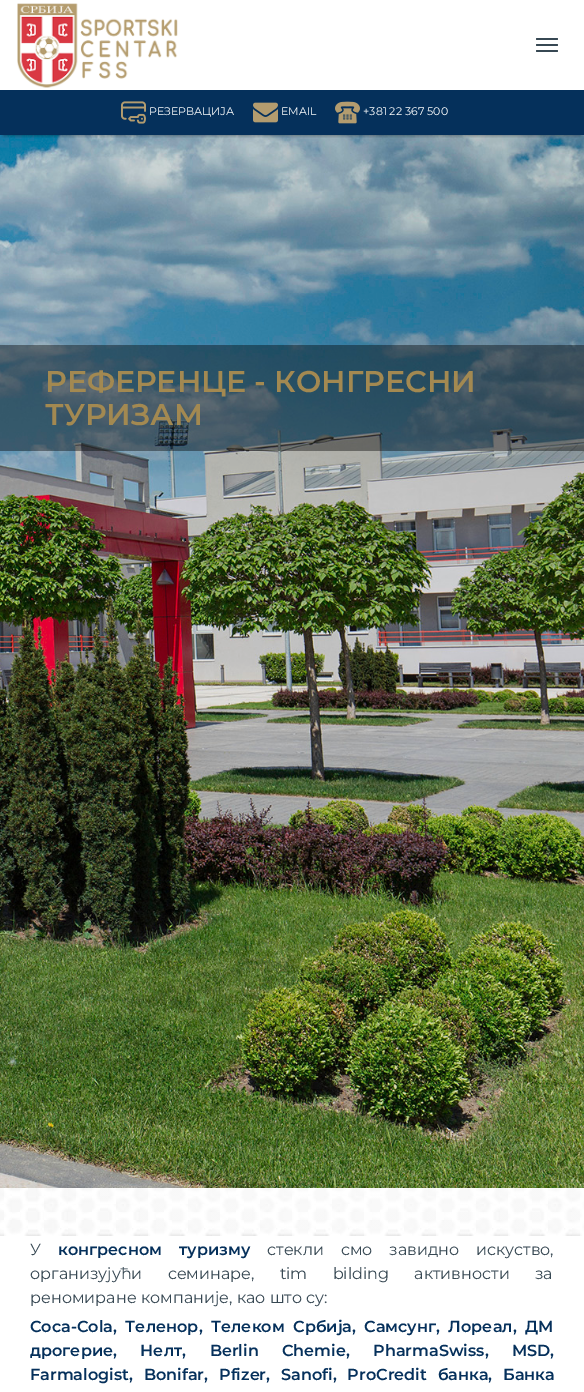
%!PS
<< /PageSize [584 1392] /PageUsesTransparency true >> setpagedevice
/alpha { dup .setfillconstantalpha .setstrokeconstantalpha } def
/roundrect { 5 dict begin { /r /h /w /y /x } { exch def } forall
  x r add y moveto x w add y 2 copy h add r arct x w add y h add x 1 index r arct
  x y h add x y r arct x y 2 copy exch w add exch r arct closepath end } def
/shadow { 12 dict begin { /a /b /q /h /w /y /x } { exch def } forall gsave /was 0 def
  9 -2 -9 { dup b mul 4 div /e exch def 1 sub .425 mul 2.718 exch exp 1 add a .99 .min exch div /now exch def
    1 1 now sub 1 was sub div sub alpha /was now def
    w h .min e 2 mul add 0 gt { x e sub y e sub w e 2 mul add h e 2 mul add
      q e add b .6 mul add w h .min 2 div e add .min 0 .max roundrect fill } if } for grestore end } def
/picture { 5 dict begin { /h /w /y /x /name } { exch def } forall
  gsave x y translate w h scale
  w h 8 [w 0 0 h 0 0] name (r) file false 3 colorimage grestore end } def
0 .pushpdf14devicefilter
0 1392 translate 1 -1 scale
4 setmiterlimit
1 setgray
0 0 584 1392 rectfill
(img1.rgb) 0 1188 584 48 picture
(img6.rgb) 0 135 584 1053 picture
gsave
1 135 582 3 rectclip
0 setgray
4 8 576 127 0 2 0.5 shadow
grestore
(img2.rgb) 17 3 161 85 picture
0.216 0.282 0.325 setrgbcolor
536 38 22 2 1 roundrect fill
536 44 22 2 1 roundrect fill
536 50 22 2 1 roundrect fill
0.02 0.188 0.357 setrgbcolor
0 90 584 45 rectfill
(img3.rgb) 121 101 25 23 picture
/Montserrat-Regular [11 0 0 -11 0 0] selectfont
1 setgray
149 115 moveto (РЕЗЕРВАЦИЈА) show
(img4.rgb) 253 102 25 21 picture
281 115 moveto (EMAIL) show
(img5.rgb) 335 101 25 23 picture
363 115 moveto (+381 22 367 500) show
0.4 alpha
0 setgray
0 345 584 106 rectfill
/Montserrat-SemiBold [30 0 0 -30 0 0] selectfont
1 alpha
0.639 0.537 0.318 setrgbcolor
45 392 moveto (РЕФЕРЕНЦЕ - КОНГРЕСНИ) show
45 425 moveto (ТУРИЗАМ) show
/Montserrat-Regular [16 0 0 -16 0 0] selectfont
0.216 0.282 0.325 setrgbcolor
30 1255 moveto (У) show
/Montserrat-SemiBold [16 0 0 -16 0 0] selectfont
0.02 0.188 0.357 setrgbcolor
58 1255 moveto 12.5 0 32 (конгресном туризму) widthshow
/Montserrat-Regular [16 0 0 -16 0 0] selectfont
0.216 0.282 0.325 setrgbcolor
267 1255 moveto 12.5 0 32 (стекли смо завидно искуство,) widthshow
30 1279 moveto 21 0 32 (организујући семинаре, tim bilding активности за) widthshow
30 1303 moveto (реномиране компаније, као што су:) show
/Montserrat-SemiBold [16 0 0 -16 0 0] selectfont
0.02 0.188 0.357 setrgbcolor
30 1332 moveto 4 0 32 (Coca-Cola, Теленор, Телеком Србија, Самсунг, Лореал, ДМ) widthshow
30 1356 moveto 19 0 32 (дрогерие, Нелт, Berlin Chemie, PharmaSwiss, MSD,) widthshow
30 1380 moveto 6.5 0 32 (Farmalogist, Bonifar, Pfizer, Sanofi, ProCredit банка, Банка) widthshow
.poppdf14devicefilter showpage
